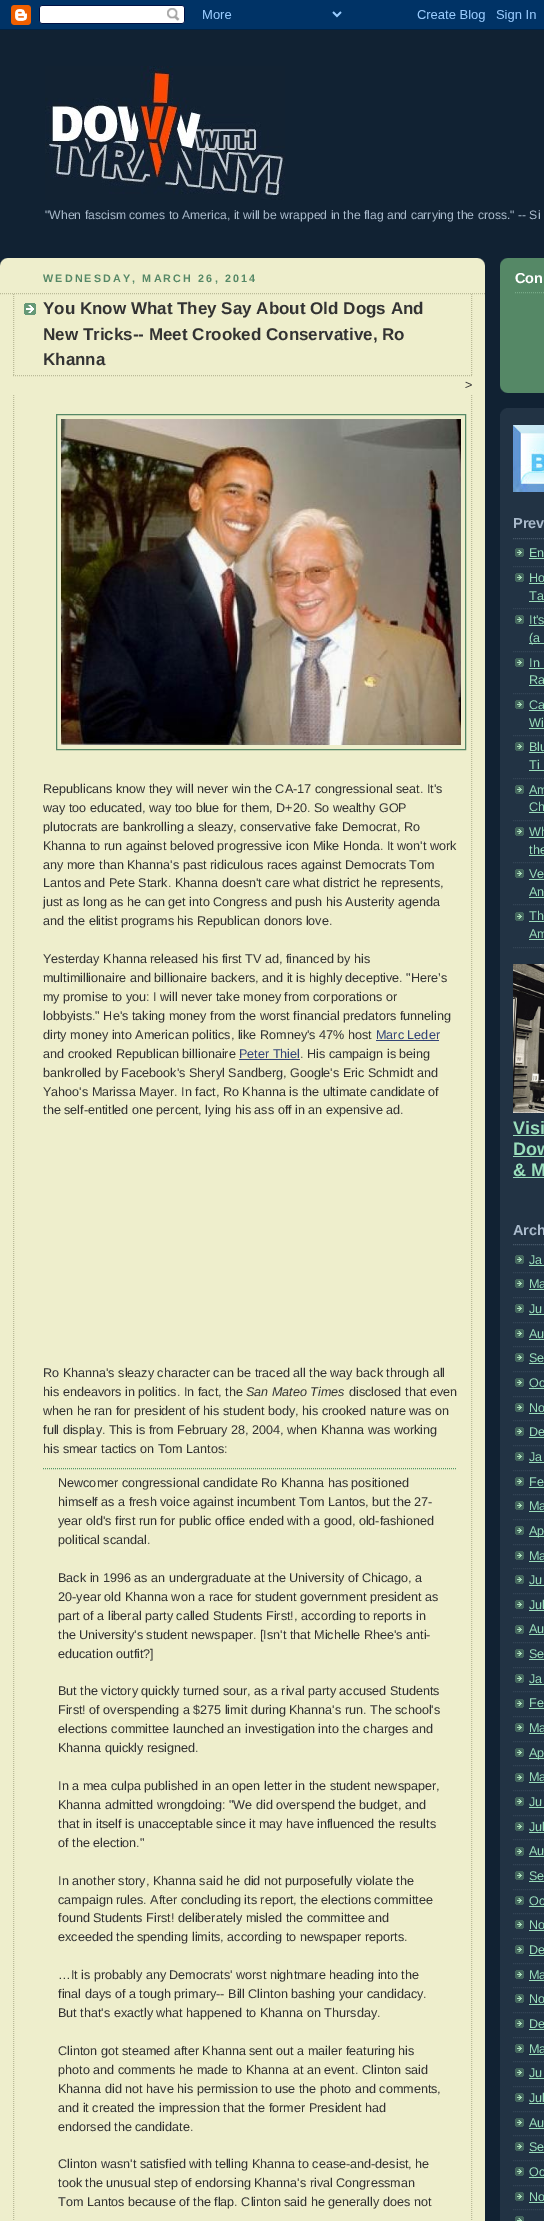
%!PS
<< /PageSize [544 2221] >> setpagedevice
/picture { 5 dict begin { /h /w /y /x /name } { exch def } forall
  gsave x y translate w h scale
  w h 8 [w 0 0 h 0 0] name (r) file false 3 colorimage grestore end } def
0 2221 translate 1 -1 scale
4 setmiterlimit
0.067 0.133 0.2 setrgbcolor
0 0 544 2221 rectfill
(img1.rgb) 0 0 544 30 picture
(img2.rgb) 45 66 240 134 picture
/LiberationSans-Regular [12.2 0 0 -12.2 0 0] selectfont
0.667 0.733 0.8 setrgbcolor
45 219 moveto ("When fascism comes to America, it will be wrapped in the flag and carrying the cross." -- Si) show
0.933 0.933 0.8 setrgbcolor
0 258 485 1963 rectfill
(img3.rgb) 0 258 485 8 picture
/LiberationSans-Bold [10.75 0 0 -10.75 0 0] selectfont
0.333 0.533 0.4 setrgbcolor
43 282 moveto 2.15 0 (WEDNESDAY, MARCH 26, 2014) ashow
0.733 0.733 0.6 setrgbcolor
[1 1] 0 setdash
newpath 0 293.5 moveto 485 293.5 lineto stroke
(img4.rgb) 24 303 12 12 picture
newpath 471.5 294 moveto 471.5 376 lineto stroke
newpath 13 375.5 moveto 472 375.5 lineto stroke
newpath 13.5 294 moveto 13.5 376 lineto stroke
/LiberationSans-Bold [17 0 0 -17 0 0] selectfont
0.2 setgray
43 314 moveto (You Know What They Say About Old Dogs And) show
43 340 moveto (New Tricks-- Meet Crooked Conservative, Ro) show
43 365 moveto (Khanna) show
/LiberationSans-Regular [12.6 0 0 -12.6 0 0] selectfont
465 389 moveto (>) show
0.733 0.733 0.6 setrgbcolor
newpath 471.5 395 moveto 471.5 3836 lineto stroke
newpath 13.5 395 moveto 13.5 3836 lineto stroke
0.333 0.533 0.4 setrgbcolor
[] 0 setdash
56.5 414.5 409 335 rectstroke
(img5.rgb) 61 419 400 326 picture
0.2 setgray
43 793 moveto (Republicans know they will never win the CA-17 congressional seat. It's) show
43 812 moveto (way too educated, way too blue for them, D+20. So wealthy GOP) show
43 831 moveto (plutocrats are bankrolling a sleazy, conservative fake Democrat, Ro) show
43 850 moveto (Khanna to run against beloved progressive icon Mike Honda. It won't work) show
43 869 moveto (any more than Khanna's past ridiculous races against Democrats Tom) show
43 887 moveto (Lantos and Pete Stark. Khanna doesn't care what district he represents,) show
43 906 moveto (just as long as he can get into Congress and push his Austerity agenda) show
43 925 moveto (and the elitist programs his Republican donors love.) show
43 963 moveto (Yesterday Khanna released his first TV ad, financed by his) show
43 982 moveto (multimillionaire and billionaire backers, and it is highly deceptive. "Here’s) show
43 1001 moveto (my promise to you: I will never take money from corporations or) show
43 1020 moveto (lobbyists." He's taking money from the worst financial predators funneling) show
43 1039 moveto (dirty money into American politics, like Romney's 47% host) show
0.2 0.267 0.467 setrgbcolor
376 1039 moveto (Marc Leder) show
376 1040 63 1 rectfill
0.2 setgray
43 1058 moveto (and crooked Republican billionaire) show
0.2 0.267 0.467 setrgbcolor
239 1058 moveto (Peter Thiel) show
0.2 setgray
300 1058 moveto (. His campaign is being) show
0.2 0.267 0.467 setrgbcolor
239 1059 61 1 rectfill
0.2 setgray
43 1077 moveto (bankrolled by Facebook's Sheryl Sandberg, Google's Eric Schmidt and) show
43 1096 moveto (Yahoo's Marissa Mayer. In fact, Ro Khanna is the ultimate candidate of) show
43 1114 moveto (the self-entitled one percent, lying his ass off in an expensive ad.) show
43 1377 moveto (Ro Khanna's sleazy character can be traced all the way back through all) show
43 1396 moveto (his endeavors in politics. In fact, the) show
/LiberationSans-Italic [12.6 0 0 -12.6 0 0] selectfont
246 1396 moveto (San Mateo Times) show
/LiberationSans-Regular [12.6 0 0 -12.6 0 0] selectfont
349 1396 moveto (disclosed that even) show
43 1415 moveto (when he ran for president of his student body, his crooked nature was on) show
43 1434 moveto (full display. This is from February 28, 2004, when Khanna was working) show
43 1453 moveto (his smear tactics on Tom Lantos:) show
0.333 0.6 0.4 setrgbcolor
[1 1] 0 setdash
newpath 43 1468.5 moveto 457 1468.5 lineto stroke
0.2 setgray
58 1487 moveto (Newcomer congressional candidate Ro Khanna has positioned) show
58 1506 moveto (himself as a fresh voice against incumbent Tom Lantos, but the 27-) show
58 1525 moveto (year old's first run for public office ended with a good, old-fashioned) show
58 1544 moveto (political scandal.) show
58 1582 moveto (Back in 1996 as an undergraduate at the University of Chicago, a) show
58 1601 moveto (20-year old Khanna won a race for student government president as) show
58 1620 moveto (part of a liberal party called Students First!, according to reports in) show
58 1639 moveto (the University's student newspaper. [Isn't that Michelle Rhee's anti-) show
58 1658 moveto (education outfit?]) show
58 1695 moveto (But the victory quickly turned sour, as a rival party accused Students) show
58 1714 moveto (First! of overspending a $275 limit during Khanna's run. The school's) show
58 1733 moveto (elections committee launched an investigation into the charges and) show
58 1752 moveto (Khanna quickly resigned.) show
58 1790 moveto (In a mea culpa published in an open letter in the student newspaper,) show
58 1809 moveto (Khanna admitted wrongdoing: "We did overspend the budget, and) show
58 1828 moveto (that in itself is unacceptable since it may have influenced the results) show
58 1847 moveto (of the election.") show
58 1885 moveto (In another story, Khanna said he did not purposefully violate the) show
58 1904 moveto (campaign rules. After concluding its report, the elections committee) show
58 1922 moveto (found Students First! deliberately misled the committee and) show
58 1941 moveto (exceeded the spending limits, according to newspaper reports.) show
58 1979 moveto (…It is probably any Democrats' worst nightmare heading into the) show
58 1998 moveto (final days of a tough primary-- Bill Clinton bashing your candidacy.) show
58 2017 moveto (But that's exactly what happened to Khanna on Thursday.) show
58 2055 moveto (Clinton got steamed after Khanna sent out a mailer featuring his) show
58 2074 moveto (photo and comments he made to Khanna at an event. Clinton said) show
58 2093 moveto (Khanna did not have his permission to use the photo and comments,) show
58 2112 moveto (and it created the impression that the former President had) show
58 2131 moveto (endorsed the candidate.) show
58 2168 moveto (Clinton wasn't satisfied with telling Khanna to cease-and-desist, he) show
58 2187 moveto (took the unusual step of endorsing Khanna's rival Congressman) show
58 2206 moveto (Tom Lantos because of the flap. Clinton said he generally does not) show
0.333 0.533 0.4 setrgbcolor
500 258 44 135 rectfill
(img6.rgb) 500 385 8 8 picture
(img7.rgb) 500 258 8 8 picture
/LiberationSans-Bold [14.5 0 0 -14.5 0 0] selectfont
1 setgray
515 283 moveto (Con) show
0.467 0.667 0.533 setrgbcolor
newpath 515 292.5 moveto 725 292.5 lineto stroke
0.133 0.2 0.267 setrgbcolor
500 408 44 1813 rectfill
(img8.rgb) 500 408 6 6 picture
(img9.rgb) 513 425 31 67 picture
0.267 0.333 0.4 setrgbcolor
newpath 513 538.5 moveto 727 538.5 lineto stroke
0.667 0.733 0.8 setrgbcolor
513 528 moveto (Prev) show
(img10.rgb) 515 548 9 9 picture
0.2 0.267 0.333 setrgbcolor
newpath 513 566.5 moveto 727 566.5 lineto stroke
/LiberationSans-Regular [12.6 0 0 -12.6 0 0] selectfont
0.6 0.867 0.733 setrgbcolor
529 557 moveto (En) show
529 558 15 1 rectfill
(img10.rgb) 515 573 9 9 picture
0.2 0.267 0.333 setrgbcolor
newpath 513 608.5 moveto 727 608.5 lineto stroke
0.6 0.867 0.733 setrgbcolor
529 582 moveto (Ho) show
529 583 15 1 rectfill
529 600 moveto (Ta) show
529 601 15 1 rectfill
(img10.rgb) 515 615 9 9 picture
0.2 0.267 0.333 setrgbcolor
newpath 513 651.5 moveto 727 651.5 lineto stroke
0.6 0.867 0.733 setrgbcolor
529 624 moveto (It's) show
529 625 15 1 rectfill
529 643 15 1 rectfill
529 642 moveto (\(a) show
(img10.rgb) 515 658 9 9 picture
0.2 0.267 0.333 setrgbcolor
newpath 513 693.5 moveto 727 693.5 lineto stroke
0.6 0.867 0.733 setrgbcolor
529 667 moveto (In) show
529 668 15 1 rectfill
529 684 moveto (Ra) show
529 685 15 1 rectfill
(img10.rgb) 515 700 9 9 picture
0.2 0.267 0.333 setrgbcolor
newpath 513 735.5 moveto 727 735.5 lineto stroke
0.6 0.867 0.733 setrgbcolor
529 709 moveto (Ca) show
529 710 15 1 rectfill
529 727 moveto (Wi) show
529 728 15 1 rectfill
(img10.rgb) 515 742 9 9 picture
0.2 0.267 0.333 setrgbcolor
newpath 513 778.5 moveto 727 778.5 lineto stroke
0.6 0.867 0.733 setrgbcolor
529 751 moveto (Blu) show
529 752 15 1 rectfill
529 769 moveto (Ti) show
529 770 15 1 rectfill
(img10.rgb) 515 785 9 9 picture
0.2 0.267 0.333 setrgbcolor
newpath 513 820.5 moveto 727 820.5 lineto stroke
0.6 0.867 0.733 setrgbcolor
529 794 moveto (Am) show
529 795 15 1 rectfill
529 811 moveto (Ch) show
529 812 15 1 rectfill
(img10.rgb) 515 827 9 9 picture
0.2 0.267 0.333 setrgbcolor
newpath 513 862.5 moveto 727 862.5 lineto stroke
0.6 0.867 0.733 setrgbcolor
529 836 moveto (Wh) show
529 837 15 1 rectfill
529 854 moveto (the) show
529 855 15 1 rectfill
(img10.rgb) 515 869 9 9 picture
0.2 0.267 0.333 setrgbcolor
newpath 513 904.5 moveto 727 904.5 lineto stroke
0.6 0.867 0.733 setrgbcolor
529 878 moveto (Ve) show
529 879 15 1 rectfill
529 896 moveto (An) show
529 897 15 1 rectfill
(img10.rgb) 515 912 9 9 picture
0.2 0.267 0.333 setrgbcolor
newpath 513 947.5 moveto 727 947.5 lineto stroke
0.6 0.867 0.733 setrgbcolor
529 920 moveto (Th) show
529 921 15 1 rectfill
529 938 moveto (Am) show
529 939 15 1 rectfill
(img11.rgb) 513 964 31 149 picture
/LiberationSans-Bold [18 0 0 -18 0 0] selectfont
513 1134 moveto (Visi) show
513 1135 31 1 rectfill
513 1155 moveto (Dow) show
513 1156 31 1 rectfill
513 1176 moveto (& M) show
513 1177 31 1 rectfill
0.267 0.333 0.4 setrgbcolor
newpath 513 1244.5 moveto 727 1244.5 lineto stroke
/LiberationSans-Bold [14.5 0 0 -14.5 0 0] selectfont
0.667 0.733 0.8 setrgbcolor
513 1235 moveto (Arch) show
(img10.rgb) 515 1255 9 9 picture
0.2 0.267 0.333 setrgbcolor
newpath 513 1272.5 moveto 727 1272.5 lineto stroke
/LiberationSans-Regular [12.6 0 0 -12.6 0 0] selectfont
0.6 0.867 0.733 setrgbcolor
529 1264 moveto (Ja) show
529 1265 15 1 rectfill
(img10.rgb) 515 1279 9 9 picture
0.2 0.267 0.333 setrgbcolor
newpath 513 1297.5 moveto 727 1297.5 lineto stroke
0.6 0.867 0.733 setrgbcolor
529 1288 moveto (Ma) show
529 1289 15 1 rectfill
(img10.rgb) 515 1304 9 9 picture
0.2 0.267 0.333 setrgbcolor
newpath 513 1322.5 moveto 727 1322.5 lineto stroke
0.6 0.867 0.733 setrgbcolor
529 1313 moveto (Ju) show
529 1314 15 1 rectfill
(img10.rgb) 515 1329 9 9 picture
0.2 0.267 0.333 setrgbcolor
newpath 513 1346.5 moveto 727 1346.5 lineto stroke
0.6 0.867 0.733 setrgbcolor
529 1338 moveto (Au) show
529 1339 15 1 rectfill
(img10.rgb) 515 1353 9 9 picture
0.2 0.267 0.333 setrgbcolor
newpath 513 1371.5 moveto 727 1371.5 lineto stroke
0.6 0.867 0.733 setrgbcolor
529 1362 moveto (Se) show
529 1363 15 1 rectfill
(img10.rgb) 515 1378 9 9 picture
0.2 0.267 0.333 setrgbcolor
newpath 513 1396.5 moveto 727 1396.5 lineto stroke
0.6 0.867 0.733 setrgbcolor
529 1387 moveto (Oc) show
529 1388 15 1 rectfill
(img10.rgb) 515 1403 9 9 picture
0.2 0.267 0.333 setrgbcolor
newpath 513 1420.5 moveto 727 1420.5 lineto stroke
0.6 0.867 0.733 setrgbcolor
529 1412 moveto (No) show
529 1413 15 1 rectfill
(img10.rgb) 515 1427 9 9 picture
0.2 0.267 0.333 setrgbcolor
newpath 513 1445.5 moveto 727 1445.5 lineto stroke
0.6 0.867 0.733 setrgbcolor
529 1436 moveto (De) show
529 1437 15 1 rectfill
(img10.rgb) 515 1452 9 9 picture
0.2 0.267 0.333 setrgbcolor
newpath 513 1470.5 moveto 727 1470.5 lineto stroke
0.6 0.867 0.733 setrgbcolor
529 1461 moveto (Ja) show
529 1462 15 1 rectfill
(img10.rgb) 515 1477 9 9 picture
0.2 0.267 0.333 setrgbcolor
newpath 513 1494.5 moveto 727 1494.5 lineto stroke
0.6 0.867 0.733 setrgbcolor
529 1486 moveto (Fe) show
529 1487 15 1 rectfill
(img10.rgb) 515 1501 9 9 picture
0.2 0.267 0.333 setrgbcolor
newpath 513 1519.5 moveto 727 1519.5 lineto stroke
0.6 0.867 0.733 setrgbcolor
529 1510 moveto (Ma) show
529 1511 15 1 rectfill
(img10.rgb) 515 1526 9 9 picture
0.2 0.267 0.333 setrgbcolor
newpath 513 1544.5 moveto 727 1544.5 lineto stroke
0.6 0.867 0.733 setrgbcolor
529 1536 15 1 rectfill
529 1535 moveto (Ap) show
(img10.rgb) 515 1551 9 9 picture
0.2 0.267 0.333 setrgbcolor
newpath 513 1568.5 moveto 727 1568.5 lineto stroke
0.6 0.867 0.733 setrgbcolor
529 1560 moveto (Ma) show
529 1561 15 1 rectfill
(img10.rgb) 515 1575 9 9 picture
0.2 0.267 0.333 setrgbcolor
newpath 513 1593.5 moveto 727 1593.5 lineto stroke
0.6 0.867 0.733 setrgbcolor
529 1584 moveto (Ju) show
529 1585 15 1 rectfill
(img10.rgb) 515 1600 9 9 picture
0.2 0.267 0.333 setrgbcolor
newpath 513 1617.5 moveto 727 1617.5 lineto stroke
0.6 0.867 0.733 setrgbcolor
529 1609 moveto (Jul) show
529 1610 15 1 rectfill
(img10.rgb) 515 1625 9 9 picture
0.2 0.267 0.333 setrgbcolor
newpath 513 1642.5 moveto 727 1642.5 lineto stroke
0.6 0.867 0.733 setrgbcolor
529 1633 moveto (Au) show
529 1634 15 1 rectfill
(img10.rgb) 515 1649 9 9 picture
0.2 0.267 0.333 setrgbcolor
newpath 513 1667.5 moveto 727 1667.5 lineto stroke
0.6 0.867 0.733 setrgbcolor
529 1658 moveto (Se) show
529 1659 15 1 rectfill
(img10.rgb) 515 1674 9 9 picture
0.2 0.267 0.333 setrgbcolor
newpath 513 1691.5 moveto 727 1691.5 lineto stroke
0.6 0.867 0.733 setrgbcolor
529 1683 moveto (Ja) show
529 1684 15 1 rectfill
(img10.rgb) 515 1699 9 9 picture
0.2 0.267 0.333 setrgbcolor
newpath 513 1716.5 moveto 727 1716.5 lineto stroke
0.6 0.867 0.733 setrgbcolor
529 1707 moveto (Fe) show
529 1708 15 1 rectfill
(img10.rgb) 515 1723 9 9 picture
0.2 0.267 0.333 setrgbcolor
newpath 513 1741.5 moveto 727 1741.5 lineto stroke
0.6 0.867 0.733 setrgbcolor
529 1732 moveto (Ma) show
529 1733 15 1 rectfill
(img10.rgb) 515 1748 9 9 picture
0.2 0.267 0.333 setrgbcolor
newpath 513 1765.5 moveto 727 1765.5 lineto stroke
0.6 0.867 0.733 setrgbcolor
529 1758 15 1 rectfill
529 1757 moveto (Ap) show
(img10.rgb) 515 1773 9 9 picture
0.2 0.267 0.333 setrgbcolor
newpath 513 1790.5 moveto 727 1790.5 lineto stroke
0.6 0.867 0.733 setrgbcolor
529 1781 moveto (Ma) show
529 1782 15 1 rectfill
(img10.rgb) 515 1797 9 9 picture
0.2 0.267 0.333 setrgbcolor
newpath 513 1815.5 moveto 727 1815.5 lineto stroke
0.6 0.867 0.733 setrgbcolor
529 1806 moveto (Ju) show
529 1807 15 1 rectfill
(img10.rgb) 515 1822 9 9 picture
0.2 0.267 0.333 setrgbcolor
newpath 513 1839.5 moveto 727 1839.5 lineto stroke
0.6 0.867 0.733 setrgbcolor
529 1831 moveto (Jul) show
529 1832 15 1 rectfill
(img10.rgb) 515 1847 9 9 picture
0.2 0.267 0.333 setrgbcolor
newpath 513 1864.5 moveto 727 1864.5 lineto stroke
0.6 0.867 0.733 setrgbcolor
529 1855 moveto (Au) show
529 1856 15 1 rectfill
(img10.rgb) 515 1871 9 9 picture
0.2 0.267 0.333 setrgbcolor
newpath 513 1889.5 moveto 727 1889.5 lineto stroke
0.6 0.867 0.733 setrgbcolor
529 1880 moveto (Se) show
529 1881 15 1 rectfill
(img10.rgb) 515 1896 9 9 picture
0.2 0.267 0.333 setrgbcolor
newpath 513 1913.5 moveto 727 1913.5 lineto stroke
0.6 0.867 0.733 setrgbcolor
529 1905 moveto (Oc) show
529 1906 15 1 rectfill
(img10.rgb) 515 1920 9 9 picture
0.2 0.267 0.333 setrgbcolor
newpath 513 1938.5 moveto 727 1938.5 lineto stroke
0.6 0.867 0.733 setrgbcolor
529 1929 moveto (No) show
529 1930 15 1 rectfill
(img10.rgb) 515 1945 9 9 picture
0.2 0.267 0.333 setrgbcolor
newpath 513 1963.5 moveto 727 1963.5 lineto stroke
0.6 0.867 0.733 setrgbcolor
529 1954 moveto (De) show
529 1955 15 1 rectfill
(img10.rgb) 515 1970 9 9 picture
0.2 0.267 0.333 setrgbcolor
newpath 513 1987.5 moveto 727 1987.5 lineto stroke
0.6 0.867 0.733 setrgbcolor
529 1979 moveto (Ma) show
529 1980 15 1 rectfill
(img10.rgb) 515 1994 9 9 picture
0.2 0.267 0.333 setrgbcolor
newpath 513 2012.5 moveto 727 2012.5 lineto stroke
0.6 0.867 0.733 setrgbcolor
529 2003 moveto (No) show
529 2004 15 1 rectfill
(img10.rgb) 515 2019 9 9 picture
0.2 0.267 0.333 setrgbcolor
newpath 513 2037.5 moveto 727 2037.5 lineto stroke
0.6 0.867 0.733 setrgbcolor
529 2028 moveto (De) show
529 2029 15 1 rectfill
(img10.rgb) 515 2044 9 9 picture
0.2 0.267 0.333 setrgbcolor
newpath 513 2061.5 moveto 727 2061.5 lineto stroke
0.6 0.867 0.733 setrgbcolor
529 2053 moveto (Ma) show
529 2054 15 1 rectfill
(img10.rgb) 515 2068 9 9 picture
0.2 0.267 0.333 setrgbcolor
newpath 513 2086.5 moveto 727 2086.5 lineto stroke
0.6 0.867 0.733 setrgbcolor
529 2077 moveto (Ju) show
529 2078 15 1 rectfill
(img10.rgb) 515 2093 9 9 picture
0.2 0.267 0.333 setrgbcolor
newpath 513 2111.5 moveto 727 2111.5 lineto stroke
0.6 0.867 0.733 setrgbcolor
529 2102 moveto (Jul) show
529 2103 15 1 rectfill
(img10.rgb) 515 2118 9 9 picture
0.2 0.267 0.333 setrgbcolor
newpath 513 2135.5 moveto 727 2135.5 lineto stroke
0.6 0.867 0.733 setrgbcolor
529 2127 moveto (Au) show
529 2128 15 1 rectfill
(img10.rgb) 515 2142 9 9 picture
0.2 0.267 0.333 setrgbcolor
newpath 513 2160.5 moveto 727 2160.5 lineto stroke
0.6 0.867 0.733 setrgbcolor
529 2151 moveto (Se) show
529 2152 15 1 rectfill
(img10.rgb) 515 2167 9 9 picture
0.2 0.267 0.333 setrgbcolor
newpath 513 2185.5 moveto 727 2185.5 lineto stroke
0.6 0.867 0.733 setrgbcolor
529 2176 moveto (Oc) show
529 2177 15 1 rectfill
(img10.rgb) 515 2192 9 9 picture
0.2 0.267 0.333 setrgbcolor
newpath 513 2209.5 moveto 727 2209.5 lineto stroke
0.6 0.867 0.733 setrgbcolor
529 2201 moveto (No) show
529 2202 15 1 rectfill
(img12.rgb) 515 2216 9 5 picture
showpage
